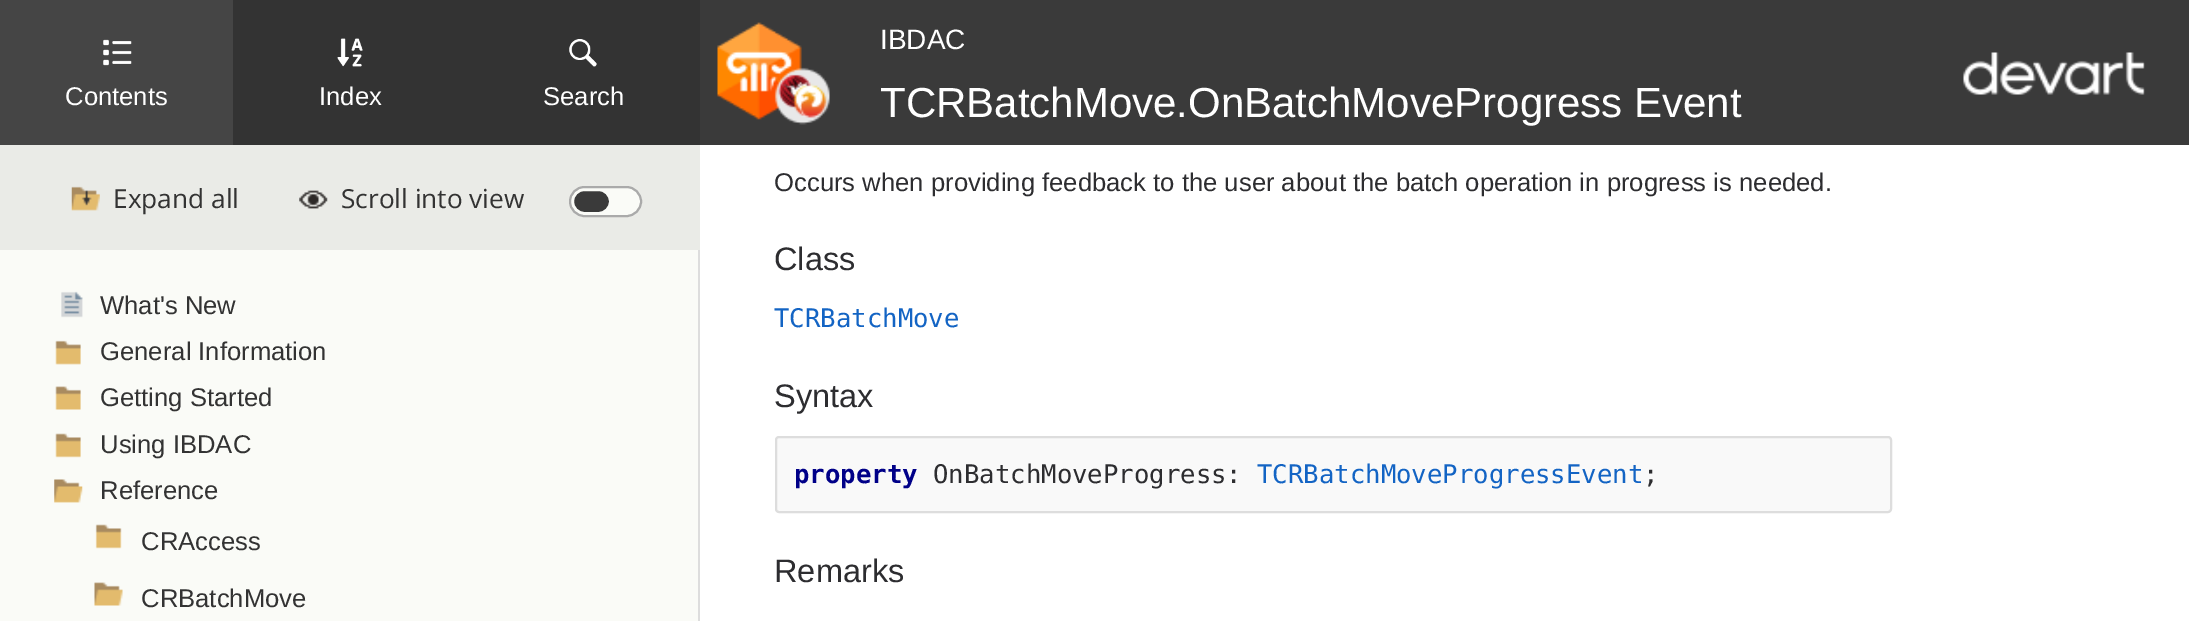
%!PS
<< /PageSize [2189 621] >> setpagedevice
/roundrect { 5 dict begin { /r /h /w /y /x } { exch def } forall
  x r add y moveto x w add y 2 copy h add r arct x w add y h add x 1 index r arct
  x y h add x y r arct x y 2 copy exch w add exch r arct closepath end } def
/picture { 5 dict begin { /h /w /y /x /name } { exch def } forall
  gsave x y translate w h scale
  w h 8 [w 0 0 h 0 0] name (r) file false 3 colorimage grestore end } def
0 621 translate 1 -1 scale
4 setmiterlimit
1 setgray
0 0 2189 621 rectfill
0.227 setgray
700 0 1489 145 rectfill
0.98 0.984 0.969 setrgbcolor
0 250 698 371 rectfill
0.2 setgray
233 0 467 145 rectfill
0.271 setgray
0 0 233 145 rectfill
(img1.rgb) 103 39 29 27 picture
/LiberationSans-Regular [25.65 0 0 -25.65 0 0] selectfont
1 setgray
65 105 moveto (Contents) show
(img2.rgb) 337 38 26 29 picture
319 105 moveto (Index) show
(img3.rgb) 569 39 28 28 picture
543 105 moveto (Search) show
0.918 0.922 0.906 setrgbcolor
0 145 700 105 rectfill
(img4.rgb) 71 186 29 25 picture
/OpenSans-Regular [26.25 0 0 -26.25 0 0] selectfont
0.2 setgray
113 208 moveto (Expand all) show
(img5.rgb) 299 190 29 19 picture
341 208 moveto (Scroll into view) show
0.98 0.984 0.969 setrgbcolor
570 187 71 29 14.5 roundrect gsave fill grestore
0.667 setgray
2 setlinewidth
stroke
0.227 setgray
573 190 37 23 11.5 roundrect gsave fill grestore
0.98 0.984 0.969 setrgbcolor
stroke
0.867 setgray
698 250 2 371 rectfill
(img6.rgb) 61 291 22 27 picture
/LiberationSans-Regular [25.65 0 0 -25.65 0 0] selectfont
0.2 setgray
100 314 moveto (What's New) show
(img7.rgb) 55 340 26 25 picture
100 360 moveto (General Information) show
(img8.rgb) 55 386 26 24 picture
100 406 moveto (Getting Started) show
(img9.rgb) 55 433 26 25 picture
100 453 moveto (Using IBDAC) show
(img10.rgb) 54 479 29 24 picture
100 499 moveto (Reference) show
(img11.rgb) 95 524 27 25 picture
141 550 moveto (CRAccess) show
(img12.rgb) 94 582 29 24 picture
141 607 moveto (CRBatchMove) show
(img13.rgb) 717 22 113 103 picture
/LiberationSans-Regular [28 0 0 -28 0 0] selectfont
1 setgray
880 49 moveto (IBDAC) show
/LiberationSans-Regular [42 0 0 -42 0 0] selectfont
880 117 moveto (TCRBatchMove.OnBatchMoveProgress Event) show
(img14.rgb) 1963 52 182 43 picture
/LiberationSans-Regular [25.65 0 0 -25.65 0 0] selectfont
0.176 0.176 0.188 setrgbcolor
774 191 moveto (Occurs when providing feedback to the user about the batch operation in progress is needed.) show
/LiberationSans-Regular [32.5 0 0 -32.5 0 0] selectfont
774 270 moveto (Class) show
/DejaVuSansMono-Regular [25.65 0 0 -25.65 0 0] selectfont
0.075 0.392 0.769 setrgbcolor
774 327 moveto (TCRBatchMove) show
/LiberationSans-Regular [32.5 0 0 -32.5 0 0] selectfont
0.176 0.176 0.188 setrgbcolor
774 407 moveto (Syntax) show
0.976 setgray
776 437 1115 75 3 roundrect gsave fill grestore
0.867 setgray
stroke
/DejaVuSansMono-Bold [25.65 0 0 -25.65 0 0] selectfont
0 0 0.533 setrgbcolor
794 483 moveto (property) show
/DejaVuSansMono-Regular [25.65 0 0 -25.65 0 0] selectfont
0.176 0.176 0.188 setrgbcolor
933 483 moveto (OnBatchMoveProgress:) show
0.075 0.392 0.769 setrgbcolor
1257 483 moveto (TCRBatchMoveProgressEvent) show
0.176 0.176 0.188 setrgbcolor
1643 483 moveto (;) show
/LiberationSans-Regular [32.5 0 0 -32.5 0 0] selectfont
774 582 moveto (Remarks) show
showpage
